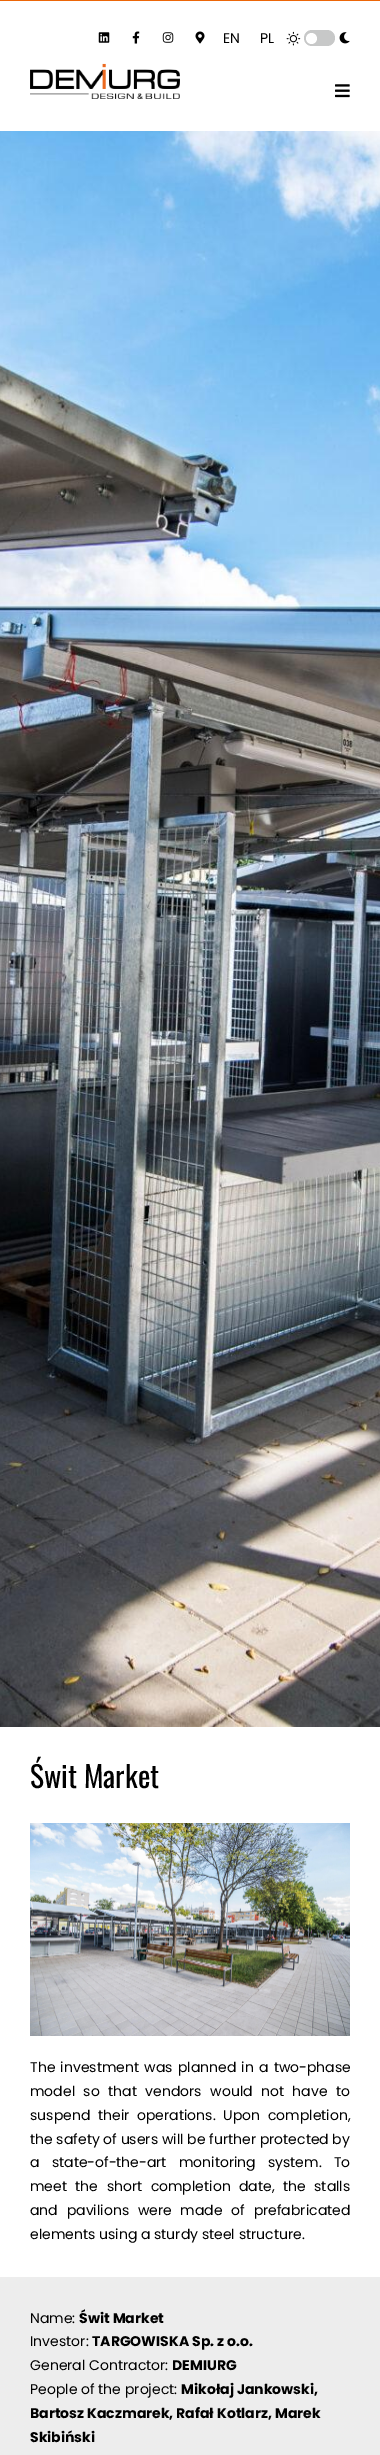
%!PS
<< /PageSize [380 2455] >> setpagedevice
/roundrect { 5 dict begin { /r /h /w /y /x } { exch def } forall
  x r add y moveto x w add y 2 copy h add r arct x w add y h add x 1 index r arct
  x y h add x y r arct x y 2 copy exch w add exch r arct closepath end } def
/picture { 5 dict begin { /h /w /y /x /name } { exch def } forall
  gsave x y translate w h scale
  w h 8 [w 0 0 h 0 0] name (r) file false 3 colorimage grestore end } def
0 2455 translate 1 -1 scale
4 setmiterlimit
1 setgray
0 0 380 2455 rectfill
0.925 0.4 0.031 setrgbcolor
0 0 380 1 rectfill
(img1.rgb) 98 32 12 11 picture
(img2.rgb) 132 31 8 13 picture
(img3.rgb) 162 32 12 11 picture
(img4.rgb) 195 31 10 13 picture
/Poppins-Regular [14 0 0 -14 0 0] selectfont
0 setgray
223 43 moveto (EN) show
260 43 moveto (PL) show
(img5.rgb) 286 31 15 15 picture
0.78 0.784 0.784 setrgbcolor
304 30 31 16 8 roundrect fill
1 setgray
newpath 311.5 38.5 5.5 0 360 arc closepath fill
(img6.rgb) 339 32 11 12 picture
(img7.rgb) 30 63 150 36 picture
(img8.rgb) 335 84 15 14 picture
(img9.rgb) 0 131 380 1596 picture
/Oswald-Regular [29.5 0 0 -29.5 0 0] selectfont
0 setgray
30 1788 moveto (Świt Market) show
(img10.rgb) 30 1823 320 213 picture
/Poppins-Regular [14 0 0 -14 0 0] selectfont
30 2072 moveto 1.5 0 32 (The investment was planned in a two-phase) widthshow
30 2096 moveto 4.75 0 32 (model so that vendors would not have to) widthshow
30 2120 moveto 4 0 32 (suspend their operations. Upon completion,) widthshow
30 2144 moveto (the safety of users will be further protected by) show
30 2167 moveto 8.5 0 32 (a state-of-the-art monitoring system. To) widthshow
30 2191 moveto 4.75 0 32 (meet the short completion date, the stalls) widthshow
30 2215 moveto 5 0 32 (and pavilions were made of prefabricated) widthshow
30 2239 moveto (elements using a sturdy steel structure.) show
0.929 setgray
0 2277 380 178 rectfill
0 setgray
30 2323 moveto (Name:) show
/Poppins-Bold [14 0 0 -14 0 0] selectfont
79 2323 moveto (Świt Market) show
/Poppins-Regular [14 0 0 -14 0 0] selectfont
30 2346 moveto (Investor:) show
/Poppins-Bold [14 0 0 -14 0 0] selectfont
92 2346 moveto (TARGOWISKA Sp. z o.o.) show
/Poppins-Regular [14 0 0 -14 0 0] selectfont
30 2370 moveto (General Contractor:) show
/Poppins-Bold [14 0 0 -14 0 0] selectfont
172 2370 moveto (DEMIURG) show
/Poppins-Regular [14 0 0 -14 0 0] selectfont
30 2394 moveto (People of the project:) show
/Poppins-Bold [14 0 0 -14 0 0] selectfont
181 2394 moveto (Mikołaj Jankowski,) show
30 2418 moveto (Bartosz Kaczmarek, Rafał Kotlarz, Marek) show
30 2442 moveto (Skibiński) show
showpage
